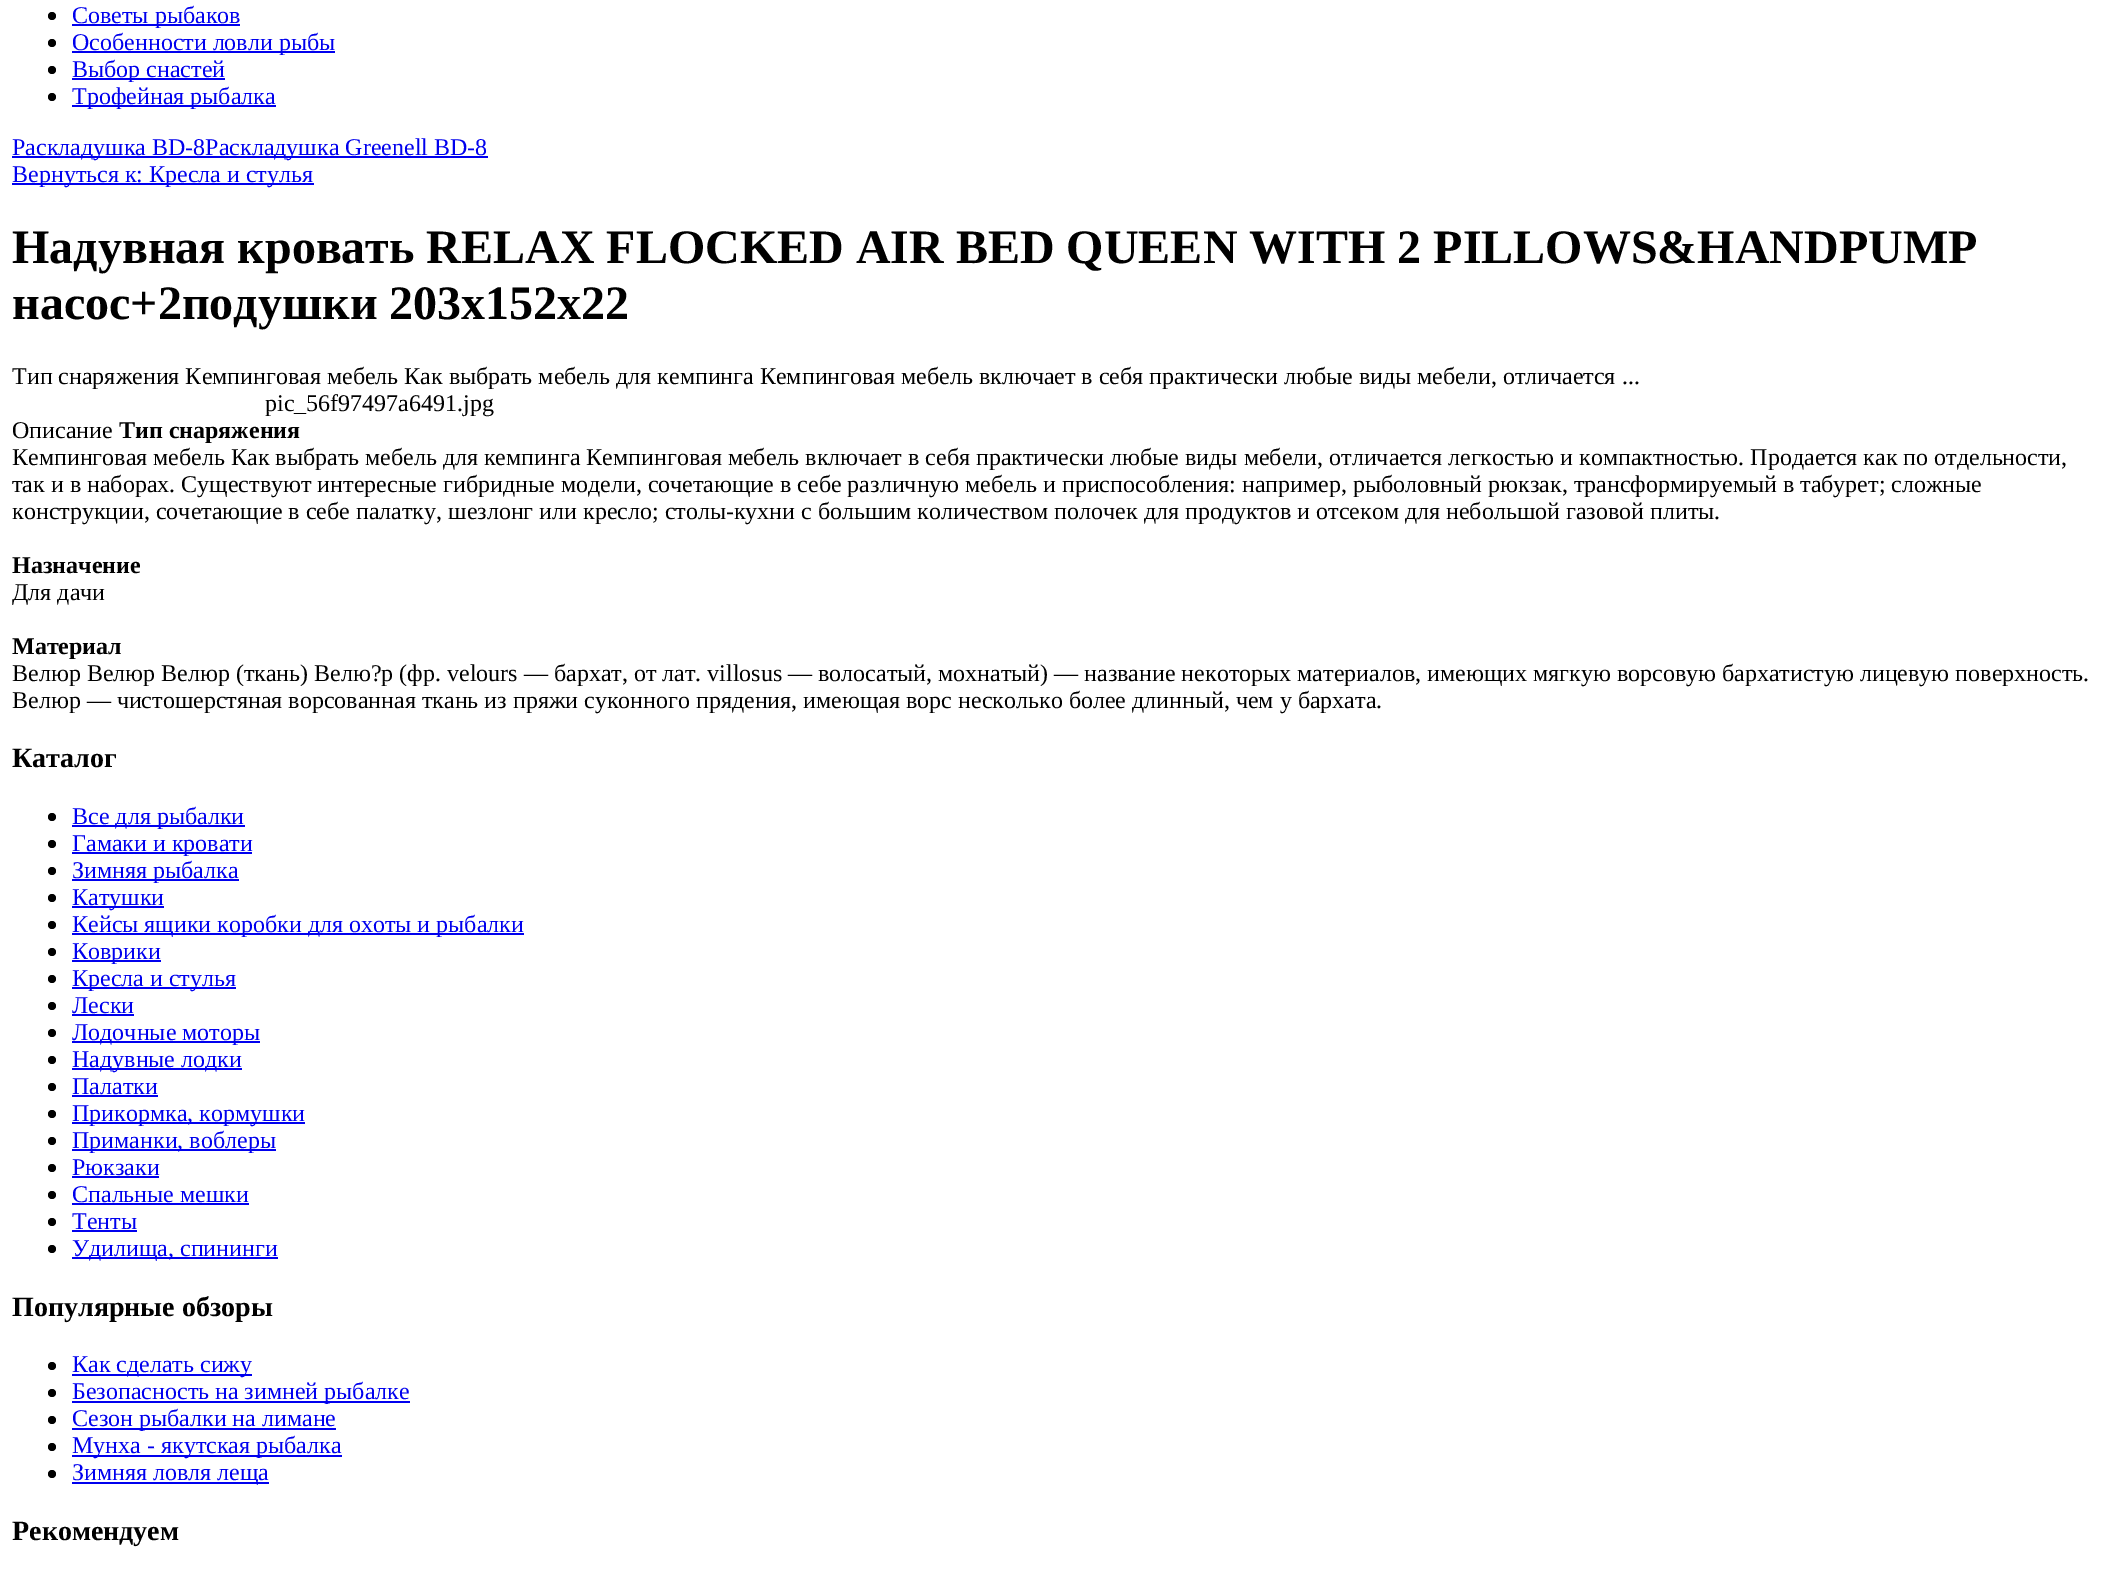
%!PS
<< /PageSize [2116 1572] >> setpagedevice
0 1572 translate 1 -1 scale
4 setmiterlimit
1 setgray
0 0 2116 1572 rectfill
0 setgray
newpath 52 16 4 0 360 arc closepath fill
0 0 0.933 setrgbcolor
72 24 168 2 rectfill
/LiberationSerif-Regular [24 0 0 -24 0 0] selectfont
72 23 moveto (Советы рыбаков) show
0 setgray
newpath 52 43 4 0 360 arc closepath fill
0 0 0.933 setrgbcolor
72 51 263 2 rectfill
72 50 moveto (Особенности ловли рыбы) show
0 setgray
newpath 52 70 4 0 360 arc closepath fill
0 0 0.933 setrgbcolor
72 78 153 2 rectfill
72 77 moveto (Выбор снастей) show
0 setgray
newpath 52 97 4 0 360 arc closepath fill
0 0 0.933 setrgbcolor
72 105 204 2 rectfill
72 104 moveto (Трофейная рыбалка) show
12 156 476 2 rectfill
12 155 moveto (Раскладушка BD-8Раскладушка Greenell BD-8) show
12 183 302 2 rectfill
12 182 moveto (Вернуться к: Кресла и стулья) show
/LiberationSerif-Bold [48 0 0 -48 0 0] selectfont
0 setgray
12 263 moveto (Надувная кровать RELAX FLOCKED AIR BED QUEEN WITH 2 PILLOWS&HANDPUMP) show
12 319 moveto (насос+2подушки 203х152х22) show
/LiberationSerif-Regular [24 0 0 -24 0 0] selectfont
12 384 moveto (Тип снаряжения Кемпинговая мебель Как выбрать мебель для кемпинга Кемпинговая мебель включает в себя практически любые виды мебели, отличается ...) show
265 411 moveto (pic_56f97497a6491.jpg) show
12 438 moveto (Описание) show
/LiberationSerif-Bold [24 0 0 -24 0 0] selectfont
119 438 moveto (Тип снаряжения) show
/LiberationSerif-Regular [24 0 0 -24 0 0] selectfont
12 465 moveto (Кемпинговая мебель Как выбрать мебель для кемпинга Кемпинговая мебель включает в себя практически любые виды мебели, отличается легкостью и компактностью. Продается как по отдельности,) show
12 492 moveto (так и в наборах. Существуют интересные гибридные модели, сочетающие в себе различную мебель и приспособления: например, рыболовный рюкзак, трансформируемый в табурет; сложные) show
12 519 moveto (конструкции, сочетающие в себе палатку, шезлонг или кресло; столы-кухни с большим количеством полочек для продуктов и отсеком для небольшой газовой плиты.) show
/LiberationSerif-Bold [24 0 0 -24 0 0] selectfont
12 573 moveto (Назначение) show
/LiberationSerif-Regular [24 0 0 -24 0 0] selectfont
12 600 moveto (Для дачи) show
/LiberationSerif-Bold [24 0 0 -24 0 0] selectfont
12 654 moveto (Материал) show
/LiberationSerif-Regular [24 0 0 -24 0 0] selectfont
12 681 moveto (Велюр Велюр Велюр \(ткань\) Велю?р \(фр. velours — бархат, от лат. villosus — волосатый, мохнатый\) — название некоторых материалов, имеющих мягкую ворсовую бархатистую лицевую поверхность.) show
12 708 moveto (Велюр — чистошерстяная ворсованная ткань из пряжи суконного прядения, имеющая ворс несколько более длинный, чем у бархата.) show
/LiberationSerif-Bold [28 0 0 -28 0 0] selectfont
12 767 moveto (Каталог) show
newpath 52 817 4 0 360 arc closepath fill
0 0 0.933 setrgbcolor
72 825 173 2 rectfill
/LiberationSerif-Regular [24 0 0 -24 0 0] selectfont
72 824 moveto (Все для рыбалки) show
0 setgray
newpath 52 844 4 0 360 arc closepath fill
0 0 0.933 setrgbcolor
72 852 180 2 rectfill
72 851 moveto (Гамаки и кровати) show
0 setgray
newpath 52 871 4 0 360 arc closepath fill
0 0 0.933 setrgbcolor
72 879 167 2 rectfill
72 878 moveto (Зимняя рыбалка) show
0 setgray
newpath 52 898 4 0 360 arc closepath fill
0 0 0.933 setrgbcolor
72 906 92 2 rectfill
72 905 moveto (Катушки) show
0 setgray
newpath 52 925 4 0 360 arc closepath fill
0 0 0.933 setrgbcolor
72 933 452 2 rectfill
72 932 moveto (Кейсы ящики коробки для охоты и рыбалки) show
0 setgray
newpath 52 952 4 0 360 arc closepath fill
0 0 0.933 setrgbcolor
72 960 89 2 rectfill
72 959 moveto (Коврики) show
0 setgray
newpath 52 979 4 0 360 arc closepath fill
0 0 0.933 setrgbcolor
72 987 164 2 rectfill
72 986 moveto (Кресла и стулья) show
0 setgray
newpath 52 1006 4 0 360 arc closepath fill
0 0 0.933 setrgbcolor
72 1013 moveto (Лески) show
72 1014 62 2 rectfill
0 setgray
newpath 52 1033 4 0 360 arc closepath fill
0 0 0.933 setrgbcolor
72 1041 188 2 rectfill
72 1040 moveto (Лодочные моторы) show
0 setgray
newpath 52 1060 4 0 360 arc closepath fill
0 0 0.933 setrgbcolor
72 1068 170 2 rectfill
72 1067 moveto (Надувные лодки) show
0 setgray
newpath 52 1087 4 0 360 arc closepath fill
0 0 0.933 setrgbcolor
72 1094 moveto (Палатки) show
72 1095 86 2 rectfill
0 setgray
newpath 52 1114 4 0 360 arc closepath fill
0 0 0.933 setrgbcolor
72 1122 233 2 rectfill
72 1121 moveto (Прикормка, кормушки) show
0 setgray
newpath 52 1141 4 0 360 arc closepath fill
0 0 0.933 setrgbcolor
72 1149 204 2 rectfill
72 1148 moveto (Приманки, воблеры) show
0 setgray
newpath 52 1168 4 0 360 arc closepath fill
0 0 0.933 setrgbcolor
72 1175 moveto (Рюкзаки) show
72 1176 87 2 rectfill
0 setgray
newpath 52 1195 4 0 360 arc closepath fill
0 0 0.933 setrgbcolor
72 1202 moveto (Спальные мешки) show
72 1203 177 2 rectfill
0 setgray
newpath 52 1222 4 0 360 arc closepath fill
0 0 0.933 setrgbcolor
72 1229 moveto (Тенты) show
72 1230 65 2 rectfill
0 setgray
newpath 52 1249 4 0 360 arc closepath fill
0 0 0.933 setrgbcolor
72 1257 206 2 rectfill
72 1256 moveto (Удилища, спининги) show
/LiberationSerif-Bold [28 0 0 -28 0 0] selectfont
0 setgray
12 1316 moveto (Популярные обзоры) show
newpath 52 1366 4 0 360 arc closepath fill
0 0 0.933 setrgbcolor
72 1374 180 2 rectfill
/LiberationSerif-Regular [24 0 0 -24 0 0] selectfont
72 1372 moveto (Как сделать сижу) show
0 setgray
newpath 52 1393 4 0 360 arc closepath fill
0 0 0.933 setrgbcolor
72 1401 338 2 rectfill
72 1399 moveto (Безопасность на зимней рыбалке) show
0 setgray
newpath 52 1420 4 0 360 arc closepath fill
0 0 0.933 setrgbcolor
72 1428 264 2 rectfill
72 1426 moveto (Сезон рыбалки на лимане) show
0 setgray
newpath 52 1447 4 0 360 arc closepath fill
0 0 0.933 setrgbcolor
72 1455 270 2 rectfill
72 1453 moveto (Мунха - якутская рыбалка) show
0 setgray
newpath 52 1474 4 0 360 arc closepath fill
0 0 0.933 setrgbcolor
72 1482 197 2 rectfill
72 1480 moveto (Зимняя ловля леща) show
/LiberationSerif-Bold [28 0 0 -28 0 0] selectfont
0 setgray
12 1540 moveto (Рекомендуем) show
showpage
